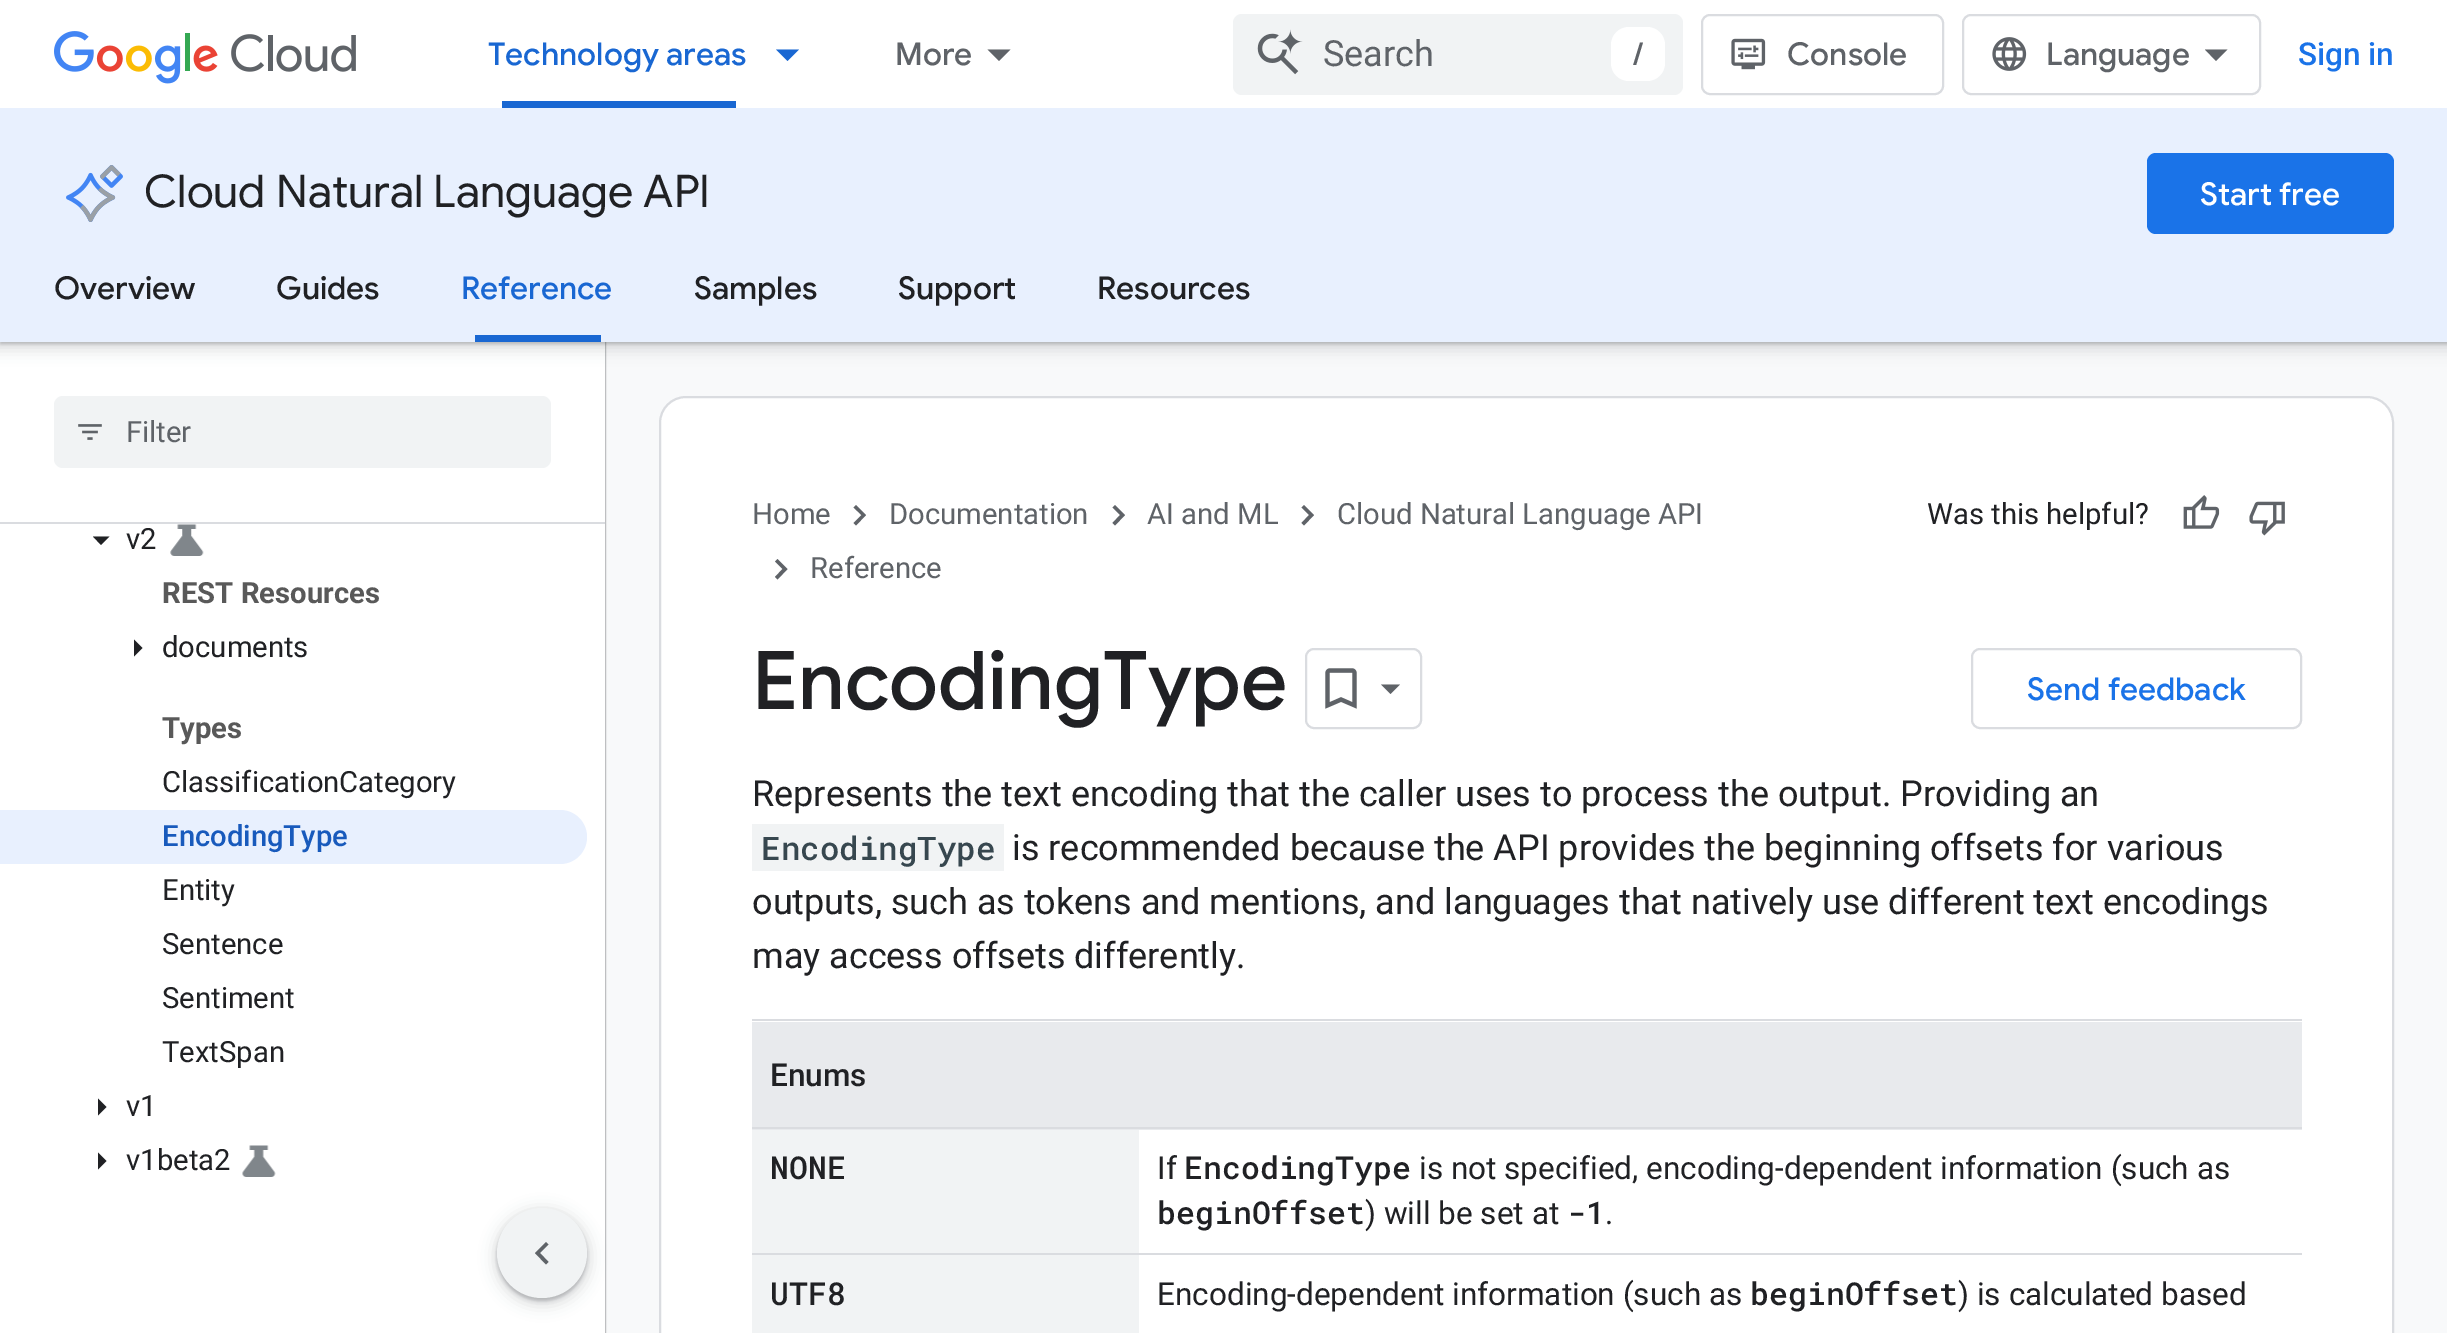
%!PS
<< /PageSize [2447 1333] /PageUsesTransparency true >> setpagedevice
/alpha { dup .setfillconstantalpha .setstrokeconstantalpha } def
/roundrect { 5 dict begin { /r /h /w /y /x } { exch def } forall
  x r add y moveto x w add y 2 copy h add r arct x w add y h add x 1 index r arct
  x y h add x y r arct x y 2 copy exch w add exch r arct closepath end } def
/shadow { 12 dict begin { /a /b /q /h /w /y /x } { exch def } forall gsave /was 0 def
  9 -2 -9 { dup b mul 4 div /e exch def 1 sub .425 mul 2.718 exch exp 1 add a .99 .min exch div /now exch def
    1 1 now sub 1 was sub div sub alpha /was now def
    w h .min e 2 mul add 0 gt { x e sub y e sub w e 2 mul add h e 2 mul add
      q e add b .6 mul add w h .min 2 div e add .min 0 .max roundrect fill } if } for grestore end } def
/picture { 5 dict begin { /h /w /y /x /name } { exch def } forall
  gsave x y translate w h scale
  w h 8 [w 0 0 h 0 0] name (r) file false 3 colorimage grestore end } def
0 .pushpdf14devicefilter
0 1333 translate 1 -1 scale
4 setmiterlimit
0.973 0.976 0.98 setrgbcolor
0 0 2447 1333 rectfill
0.235 0.251 0.263 setrgbcolor
0 2 605 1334 0 1 1 shadow
1 setgray
0 524 605 809 rectfill
0 342 605 180 rectfill
0.235 0.251 0.263 setrgbcolor
-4 108 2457 243 0 7 0.15 shadow
0 110 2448 234 0 2 0.3 shadow
1 setgray
0 0 2447 108 rectfill
(img1.rgb) 54 31 302 53 picture
/GoogleSans-Medium [31.5 0 0 -31.5 0 0] selectfont
0.098 0.404 0.824 setrgbcolor
488 65 moveto (Technology areas) show
502 101 234 7 rectfill
newpath 776 49.5 moveto 799 49.5 lineto 787.5 61 lineto closepath fill
0.373 0.388 0.408 setrgbcolor
895 65 moveto (More) show
newpath 987.5 49.5 moveto 1010.5 49.5 lineto 999 61 lineto closepath fill
0.945 0.953 0.957 setrgbcolor
1233 14 450 81 9 roundrect fill
(img2.rgb) 1257 29 46 46 picture
/Roboto-Regular [36 0 0 -36 0 0] selectfont
0.373 0.388 0.408 setrgbcolor
1323 66 moveto (Search) show
1 setgray
1611 27 54 54 18 roundrect fill
/GoogleSans-Medium [31.5 0 0 -31.5 0 0] selectfont
0.373 0.388 0.408 setrgbcolor
1633 65 moveto (/) show
0.855 0.863 0.878 setrgbcolor
2 setlinewidth
1702 15 241 79 8 roundrect stroke
(img3.rgb) 1731 38 35 32 picture
0.373 0.388 0.408 setrgbcolor
1787 65 moveto (Console) show
0.855 0.863 0.878 setrgbcolor
1963 15 297 79 8 roundrect stroke
(img4.rgb) 1992 37 35 34 picture
0.373 0.388 0.408 setrgbcolor
2046 65 moveto (Language) show
newpath 2216 61 moveto 2205 49.5 lineto 2227.5 49.5 lineto closepath fill
/Roboto-Medium [31.5 0 0 -31.5 0 0] selectfont
0.102 0.451 0.91 setrgbcolor
2298 65 moveto (Sign in) show
0.91 0.941 0.996 setrgbcolor
0 108 2447 234 rectfill
(img5.rgb) 66 165 57 57 picture
/GoogleSans-Regular [45 0 0 -45 0 0] selectfont
0.125 0.129 0.141 setrgbcolor
144 207 moveto (Cloud Natural Language API) show
0.102 0.451 0.91 setrgbcolor
2147 153 247 81 9 roundrect fill
/GoogleSans-Medium [31.5 0 0 -31.5 0 0] selectfont
1 setgray
2200 205 moveto (Start free) show
0.125 0.129 0.141 setrgbcolor
54 299 moveto (Overview) show
276 299 moveto (Guides) show
0.098 0.404 0.824 setrgbcolor
461 299 moveto (Reference) show
475 335 126 7 rectfill
0.125 0.129 0.141 setrgbcolor
694 299 moveto (Samples) show
898 299 moveto (Support) show
1097 299 moveto (Resources) show
0.855 0.863 0.878 setrgbcolor
0 522 605 2 rectfill
0.945 0.953 0.957 setrgbcolor
54 396 497 72 9 roundrect fill
(img6.rgb) 78 424 24 16 picture
/Roboto-Regular [29.25 0 0 -29.25 0 0] selectfont
0.373 0.388 0.408 setrgbcolor
126 442 moveto (Filter) show
0.125 0.129 0.141 setrgbcolor
newpath 93 536.5 moveto 109.5 536.5 lineto 101 545 lineto closepath fill
126 549 moveto (v2) show
(img7.rgb) 170 524 34 32 picture
/Roboto-Bold [29.25 0 0 -29.25 0 0] selectfont
0.349 setgray
162 603 moveto (REST Resources) show
0.125 0.129 0.141 setrgbcolor
newpath 134 656.5 moveto 134 639.5 lineto 142.5 648 lineto closepath fill
/Roboto-Regular [29.25 0 0 -29.25 0 0] selectfont
162 657 moveto (documents) show
/Roboto-Bold [29.25 0 0 -29.25 0 0] selectfont
0.349 setgray
162 738 moveto (Types) show
/Roboto-Regular [29.25 0 0 -29.25 0 0] selectfont
0.125 0.129 0.141 setrgbcolor
162 792 moveto (ClassificationCategory) show
0.91 0.941 0.996 setrgbcolor
newpath 0 810 moveto 560 810 lineto 575 810 587 822 587 837 curveto 587 852 575 864 560 864 curveto 0 864 lineto closepath fill
/Roboto-Medium [29.25 0 0 -29.25 0 0] selectfont
0.094 0.353 0.737 setrgbcolor
162 846 moveto (EncodingType) show
/Roboto-Regular [29.25 0 0 -29.25 0 0] selectfont
0.125 0.129 0.141 setrgbcolor
162 900 moveto (Entity) show
162 954 moveto (Sentence) show
162 1008 moveto (Sentiment) show
162 1062 moveto (TextSpan) show
newpath 98 1115.5 moveto 98 1098.5 lineto 106.5 1107 lineto closepath fill
126 1116 moveto (v1) show
newpath 98 1169.5 moveto 98 1152.5 lineto 106.5 1161 lineto closepath fill
126 1170 moveto (v1beta2) show
(img8.rgb) 242 1145 34 32 picture
0.235 0.251 0.263 setrgbcolor
493 1208 99 99 49.5 7 0.15 shadow
497 1211 90 90 45 2 0.3 shadow
0.945 0.953 0.957 setrgbcolor
newpath 542 1253 45 0 360 arc closepath fill
0.373 0.388 0.408 setrgbcolor
newpath 548.5 1244.5 moveto 540 1253 lineto 548.5 1262 lineto 546 1264.5 lineto 535 1253 lineto 546 1242 lineto closepath fill
1 setgray
660 397 1733 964 26 roundrect gsave fill grestore
0.855 0.863 0.878 setrgbcolor
stroke
0.373 0.388 0.408 setrgbcolor
752 524 moveto (Home) show
newpath 856 505 moveto 866 515 lineto 856 525.5 lineto 853.5 523 lineto 861.5 515 lineto 853.5 507.5 lineto closepath fill
889 524 moveto (Documentation) show
newpath 1115 505 moveto 1125 515 lineto 1115 525.5 lineto 1112.5 523 lineto 1120 515 lineto 1112.5 507.5 lineto closepath fill
1147 524 moveto (AI and ML) show
newpath 1304 505 moveto 1314 515 lineto 1304 525.5 lineto 1301.5 523 lineto 1309 515 lineto 1301.5 507.5 lineto closepath fill
1337 524 moveto (Cloud Natural Language API) show
newpath 777.5 559 moveto 787.5 569 lineto 777.5 579.5 lineto 775 577 lineto 782.5 569 lineto 775 561.5 lineto closepath fill
810 578 moveto (Reference) show
0.125 0.129 0.141 setrgbcolor
1927 524 moveto (Was this helpful?) show
(img9.rgb) 2183 495 37 34 picture
(img10.rgb) 2249 501 36 35 picture
/GoogleSans-Medium [81 0 0 -81 0 0] selectfont
752 709 moveto (EncodingType) show
0.855 0.863 0.878 setrgbcolor
1306 649 115 79 8 roundrect stroke
(img11.rgb) 1325 668 32 41 picture
0.373 0.388 0.408 setrgbcolor
newpath 1381 684.5 moveto 1400 684.5 lineto 1390.5 694 lineto closepath fill
0.855 0.863 0.878 setrgbcolor
1972 649 329 79 8 roundrect stroke
/GoogleSans-Medium [31.5 0 0 -31.5 0 0] selectfont
0.102 0.451 0.91 setrgbcolor
2027 700 moveto (Send feedback) show
/Roboto-Regular [36 0 0 -36 0 0] selectfont
0.125 0.129 0.141 setrgbcolor
752 806 moveto (Represents the text encoding that the caller uses to process the output. Providing an) show
0.945 0.953 0.957 setrgbcolor
752 824 252 47 rectfill
/RobotoMono-Medium [32.5 0 0 -32.5 0 0] selectfont
0.216 0.278 0.31 setrgbcolor
761 860 moveto (EncodingType) show
/Roboto-Regular [36 0 0 -36 0 0] selectfont
0.125 0.129 0.141 setrgbcolor
1012 860 moveto (is recommended because the API provides the beginning offsets for various) show
752 914 moveto (outputs, such as tokens and mentions, and languages that natively use different text encodings) show
752 968 moveto (may access offsets differently.) show
0.855 0.863 0.878 setrgbcolor
752 1019 1550 2 rectfill
0.91 0.918 0.929 setrgbcolor
752 1022 1550 108 rectfill
/Roboto-Medium [31.5 0 0 -31.5 0 0] selectfont
0.125 0.129 0.141 setrgbcolor
770 1086 moveto (Enums) show
0.855 0.863 0.878 setrgbcolor
752 1127 1550 2 rectfill
0.945 0.953 0.957 setrgbcolor
752 1130 387 203 rectfill
0.855 0.863 0.878 setrgbcolor
752 1253 1550 2 rectfill
/RobotoMono-Medium [31.5 0 0 -31.5 0 0] selectfont
0.125 0.129 0.141 setrgbcolor
770 1179 moveto (NONE) show
/Roboto-Regular [31.5 0 0 -31.5 0 0] selectfont
1157 1179 moveto (If) show
/RobotoMono-Medium [31.5 0 0 -31.5 0 0] selectfont
1184 1179 moveto (EncodingType) show
/Roboto-Regular [31.5 0 0 -31.5 0 0] selectfont
1419 1179 moveto (is not specified, encoding-dependent information \(such as) show
/RobotoMono-Medium [31.5 0 0 -31.5 0 0] selectfont
1157 1224 moveto (beginOffset) show
/Roboto-Regular [31.5 0 0 -31.5 0 0] selectfont
1365 1224 moveto (\) will be set at) show
/RobotoMono-Medium [31.5 0 0 -31.5 0 0] selectfont
1567 1224 moveto (-1) show
/Roboto-Regular [31.5 0 0 -31.5 0 0] selectfont
1605 1224 moveto (.) show
/RobotoMono-Medium [31.5 0 0 -31.5 0 0] selectfont
770 1305 moveto (UTF8) show
/Roboto-Regular [31.5 0 0 -31.5 0 0] selectfont
1157 1305 moveto (Encoding-dependent information \(such as) show
/RobotoMono-Medium [31.5 0 0 -31.5 0 0] selectfont
1750 1305 moveto (beginOffset) show
/Roboto-Regular [31.5 0 0 -31.5 0 0] selectfont
1958 1305 moveto (\) is calculated based) show
.poppdf14devicefilter showpage
